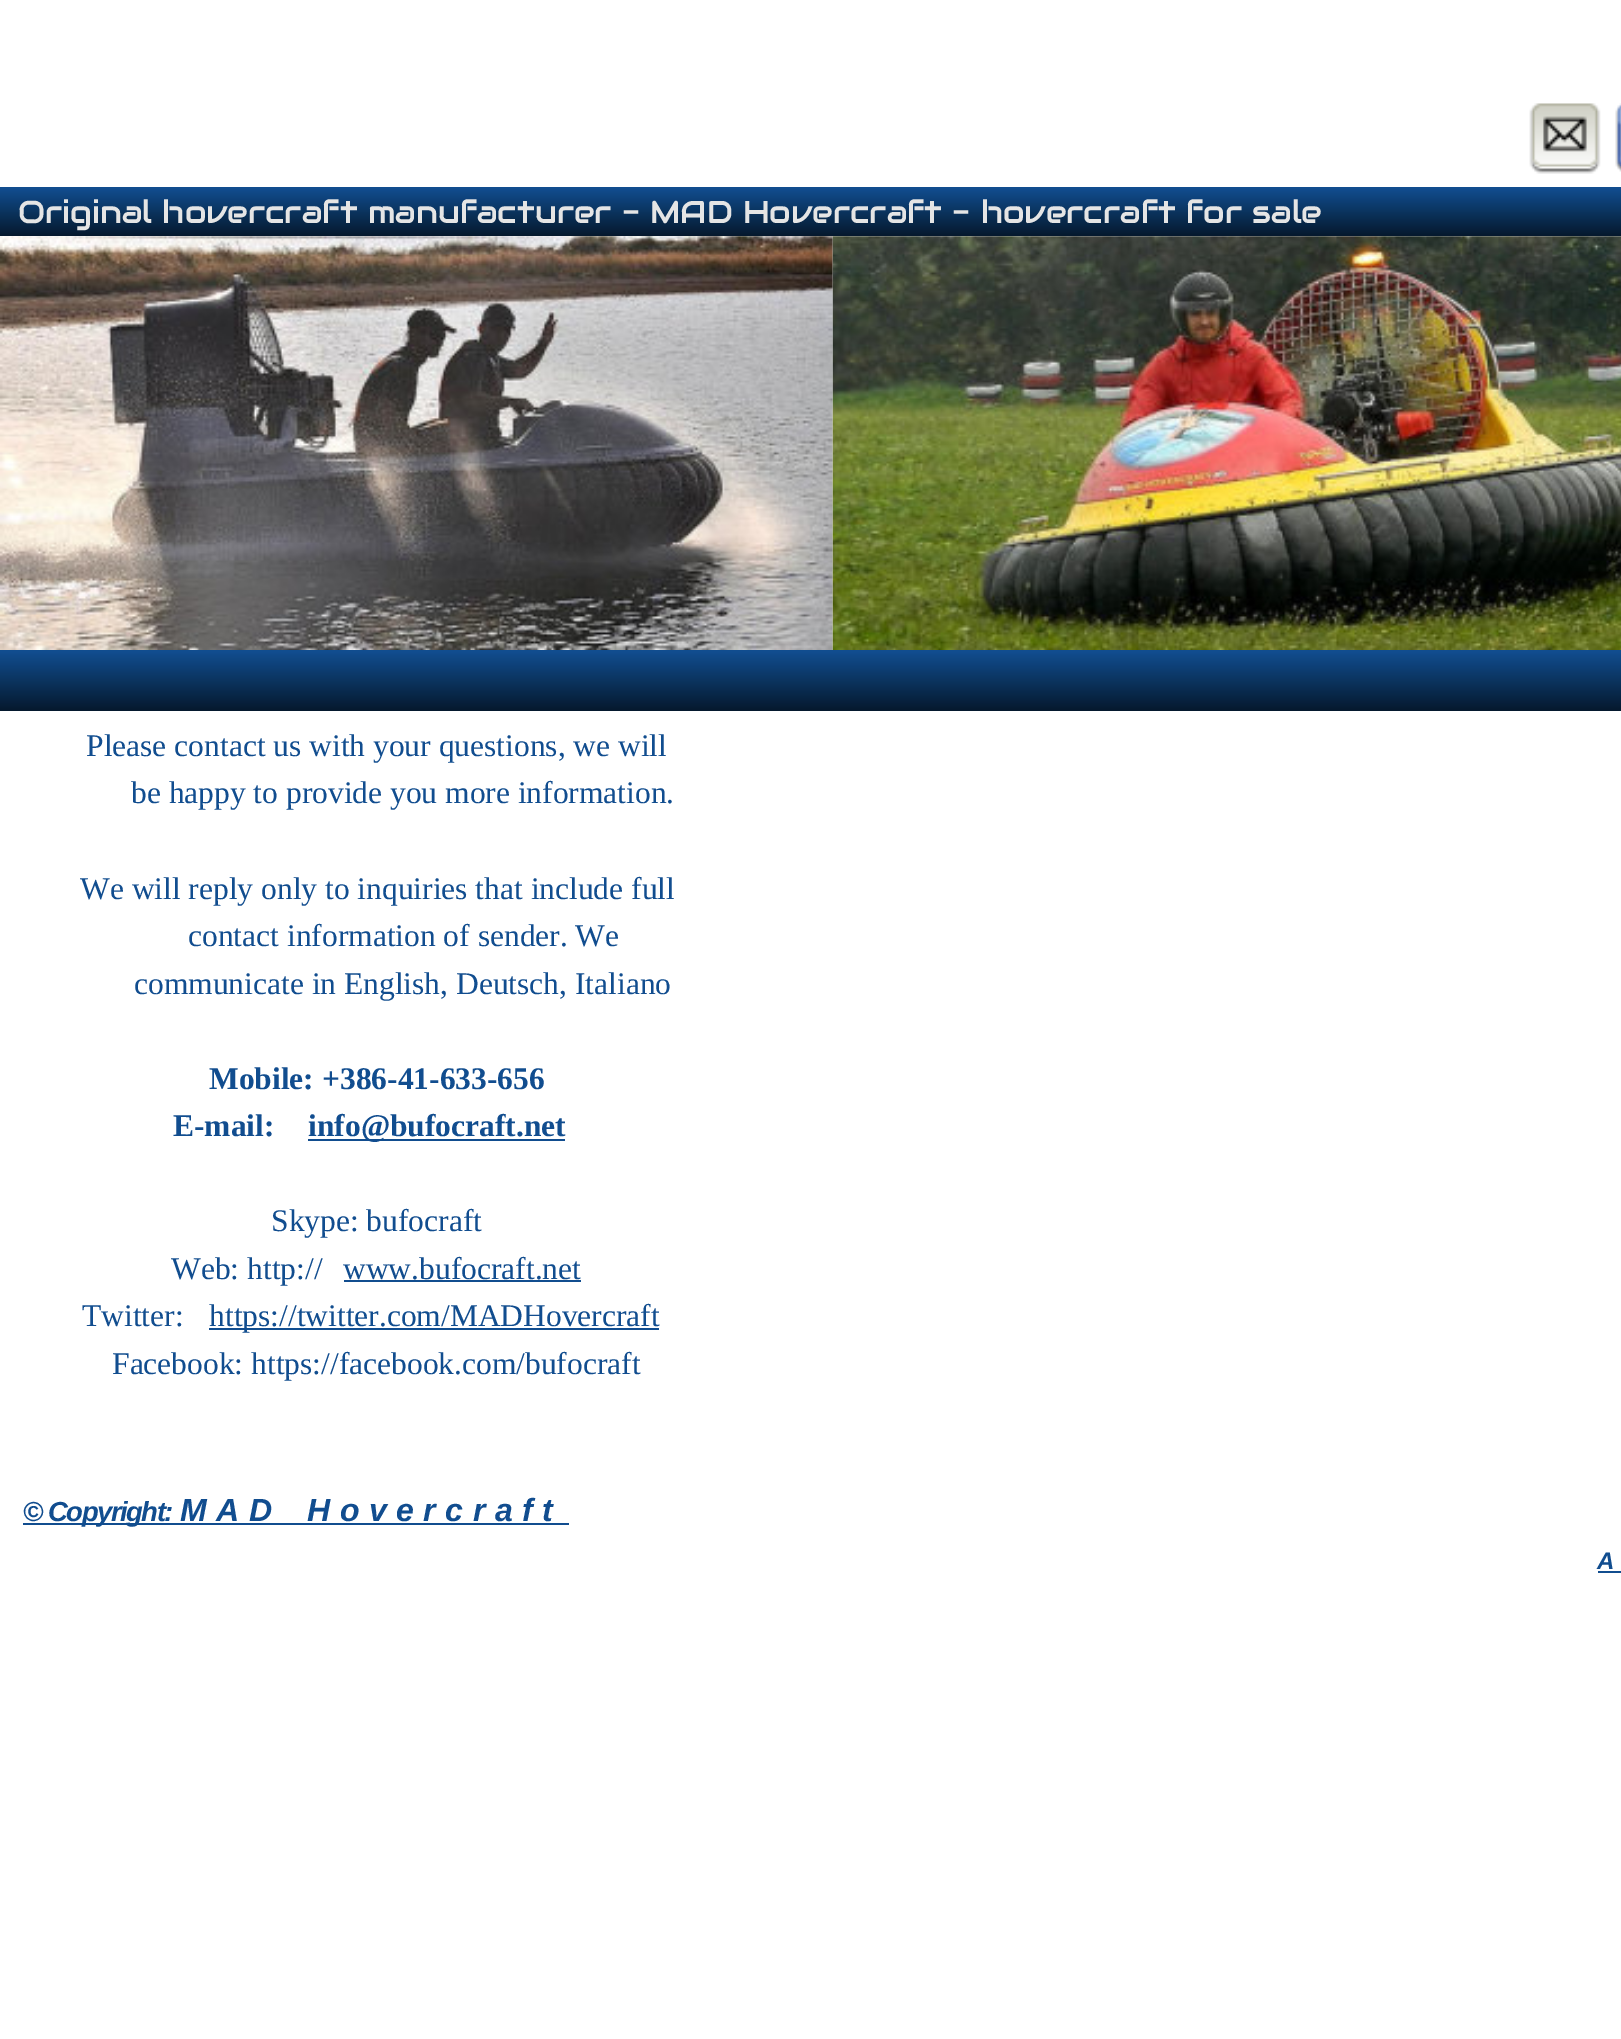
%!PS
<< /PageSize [1621 2039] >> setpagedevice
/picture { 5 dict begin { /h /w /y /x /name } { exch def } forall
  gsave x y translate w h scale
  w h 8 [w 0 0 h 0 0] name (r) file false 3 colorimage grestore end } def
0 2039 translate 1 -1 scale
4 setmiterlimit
1 setgray
0 0 1621 2039 rectfill
(img1.rgb) 1529 103 72 71 picture
(img2.rgb) 1615 103 6 69 picture
gsave newpath 0 187 moveto 1621 187 lineto 1621 236 lineto 0 236 lineto closepath clip newpath
<< /ShadingType 2 /ColorSpace /DeviceRGB /Coords [900 187 900 236] /Extend [true true] /Function << /FunctionType 3 /Domain [0 1] /Functions [<< /FunctionType 2 /Domain [0 1] /C0 [0.067 0.302 0.561] /C1 [0.067 0.302 0.561] /N 1 >> << /FunctionType 2 /Domain [0 1] /C0 [0.067 0.302 0.561] /C1 [0.02 0.098 0.18] /N 1 >> << /FunctionType 2 /Domain [0 1] /C0 [0.02 0.098 0.18] /C1 [0.02 0.098 0.18] /N 1 >>] /Bounds [0.03 0.99] /Encode [0 1 0 1 0 1] >> >> shfill grestore
/Audiowide-Regular [31.5 0 0 -31.5 0 0] selectfont
0.898 setgray
18 223 moveto (Original hovercraft manufacturer - MAD Hovercraft - hovercraft for sale) show
(img4.rgb) 832 236 789 414 picture
(img3.rgb) 0 236 833 414 picture
gsave newpath 0 650 moveto 1621 650 lineto 1621 711 lineto 0 711 lineto closepath clip newpath
<< /ShadingType 2 /ColorSpace /DeviceRGB /Coords [900 650 900 711] /Extend [true true] /Function << /FunctionType 3 /Domain [0 1] /Functions [<< /FunctionType 2 /Domain [0 1] /C0 [0.067 0.302 0.561] /C1 [0.067 0.302 0.561] /N 1 >> << /FunctionType 2 /Domain [0 1] /C0 [0.067 0.302 0.561] /C1 [0.02 0.098 0.18] /N 1 >> << /FunctionType 2 /Domain [0 1] /C0 [0.02 0.098 0.18] /C1 [0.02 0.098 0.18] /N 1 >>] /Bounds [0.03 0.99] /Encode [0 1 0 1 0 1] >> >> shfill grestore
/LiberationSerif-Regular [31.5 0 0 -31.5 0 0] selectfont
0.067 0.302 0.561 setrgbcolor
86 756 moveto (Please contact us with your questions, we will) show
131 803 moveto (be happy to provide you more information.) show
80 899 moveto (We will reply only to inquiries that include full) show
188 946 moveto (contact information of sender. We) show
134 994 moveto (communicate in English, Deutsch, Italiano) show
/LiberationSerif-Bold [31.5 0 0 -31.5 0 0] selectfont
209 1089 moveto (Mobile: +386-41-633-656) show
173 1136 moveto (E-mail:) show
308 1139 257 2 rectfill
308 1136 moveto (info@bufocraft.net) show
/LiberationSerif-Regular [31.5 0 0 -31.5 0 0] selectfont
271 1231 moveto (Skype: bufocraft) show
171 1279 moveto (Web: http://) show
343 1279 moveto (www.bufocraft.net) show
344 1280 237 2 rectfill
82 1326 moveto (Twitter:) show
209 1328 450 2 rectfill
209 1326 moveto (https://twitter.com/MADHovercraft) show
112 1374 moveto (Facebook: https://facebook.com/bufocraft) show
23 1523 546 2 rectfill
/LiberationSans-BoldItalic [27.5 0 0 -27.5 0 0] selectfont
23 1521 moveto -1.5 0 (© Copyright:) ashow
/LiberationSans-BoldItalic [32.1 0 0 -32.1 0 0] selectfont
180 1521 moveto 9.5 0 (MAD) ashow
307 1521 moveto 9.5 0 (Hovercraft) ashow
/LiberationSans-BoldItalic [24 0 0 -24 0 0] selectfont
1597 1569 moveto 6 0 (A) ashow
1598 1571 23 2 rectfill
showpage
